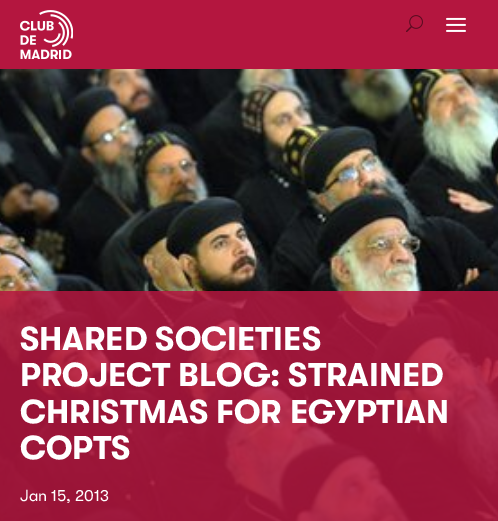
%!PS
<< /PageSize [498 521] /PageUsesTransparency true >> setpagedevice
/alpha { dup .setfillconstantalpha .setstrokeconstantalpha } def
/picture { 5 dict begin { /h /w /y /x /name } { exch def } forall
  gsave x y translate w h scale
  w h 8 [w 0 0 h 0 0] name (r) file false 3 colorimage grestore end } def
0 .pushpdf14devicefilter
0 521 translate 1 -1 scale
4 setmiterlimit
1 setgray
0 0 498 521 rectfill
0.706 0.086 0.247 setrgbcolor
0 0 498 69 rectfill
(img1.rgb) 20 10 53 49 picture
(img2.rgb) 406 15 17 17 picture
(img3.rgb) 446 17 20 15 picture
(img4.rgb) 0 69 498 452 picture
0.85 alpha
0 291 498 230 rectfill
/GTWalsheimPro-Bold [33 0 0 -33 0 0] selectfont
1 alpha
1 setgray
20 350 moveto (SHARED SOCIETIES) show
20 386 moveto (PROJECT BLOG: STRAINED) show
20 423 moveto (CHRISTMAS FOR EGYPTIAN) show
20 459 moveto (COPTS) show
/GTWalsheimPro-Regular [16 0 0 -16 0 0] selectfont
20 501 moveto (Jan 15, 2013) show
.poppdf14devicefilter showpage
